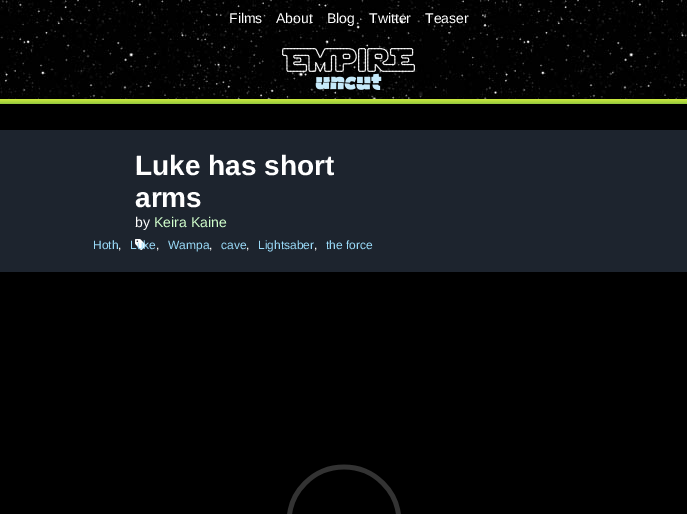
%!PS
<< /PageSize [687 514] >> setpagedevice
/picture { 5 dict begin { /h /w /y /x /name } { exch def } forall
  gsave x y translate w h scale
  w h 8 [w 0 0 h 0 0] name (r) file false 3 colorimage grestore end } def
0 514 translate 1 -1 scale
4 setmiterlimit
0 setgray
0 0 687 514 rectfill
(img1.rgb) 0 0 687 99 picture
/LiberationSans-Regular [14 0 0 -14 0 0] selectfont
1 setgray
229 23 moveto (Films) show
276 23 moveto (About) show
327 23 moveto (Blog) show
369 23 moveto (Twitter) show
425 23 moveto (Teaser) show
(img2.rgb) 282 48 133 42 picture
gsave newpath 0 99 moveto 687 99 lineto 687 104 lineto 0 104 lineto closepath clip newpath
<< /ShadingType 2 /ColorSpace /DeviceRGB /Coords [344 99 344 104] /Extend [true true] /Function << /FunctionType 2 /Domain [0 1] /C0 [0.808 0.918 0.239] /C1 [0.584 0.788 0.239] /N 1 >> >> shfill grestore
0.114 0.141 0.18 setrgbcolor
0 130 687 142 rectfill
/LiberationSans-Bold [28 0 0 -28 0 0] selectfont
1 setgray
135 175 moveto (Luke has short) show
135 207 moveto (arms) show
/LiberationSans-Regular [14 0 0 -14 0 0] selectfont
135 227 moveto (by) show
0.82 1 0.8 setrgbcolor
154 227 moveto (Keira Kaine) show
(img3.rgb) 135 239 11 11 picture
/LiberationSans-Regular [12 0 0 -12 0 0] selectfont
0.604 0.859 0.976 setrgbcolor
93 249 moveto (Hoth) show
1 setgray
118 249 moveto (,) show
0.604 0.859 0.976 setrgbcolor
130 249 moveto (Luke) show
1 setgray
156 249 moveto (,) show
0.604 0.859 0.976 setrgbcolor
168 249 moveto (Wampa) show
1 setgray
209 249 moveto (,) show
0.604 0.859 0.976 setrgbcolor
221 249 moveto (cave) show
1 setgray
246 249 moveto (,) show
0.604 0.859 0.976 setrgbcolor
258 249 moveto (Lightsaber) show
1 setgray
314 249 moveto (,) show
0.604 0.859 0.976 setrgbcolor
326 249 moveto (the force) show
(img4.rgb) 287 464 114 50 picture
showpage
